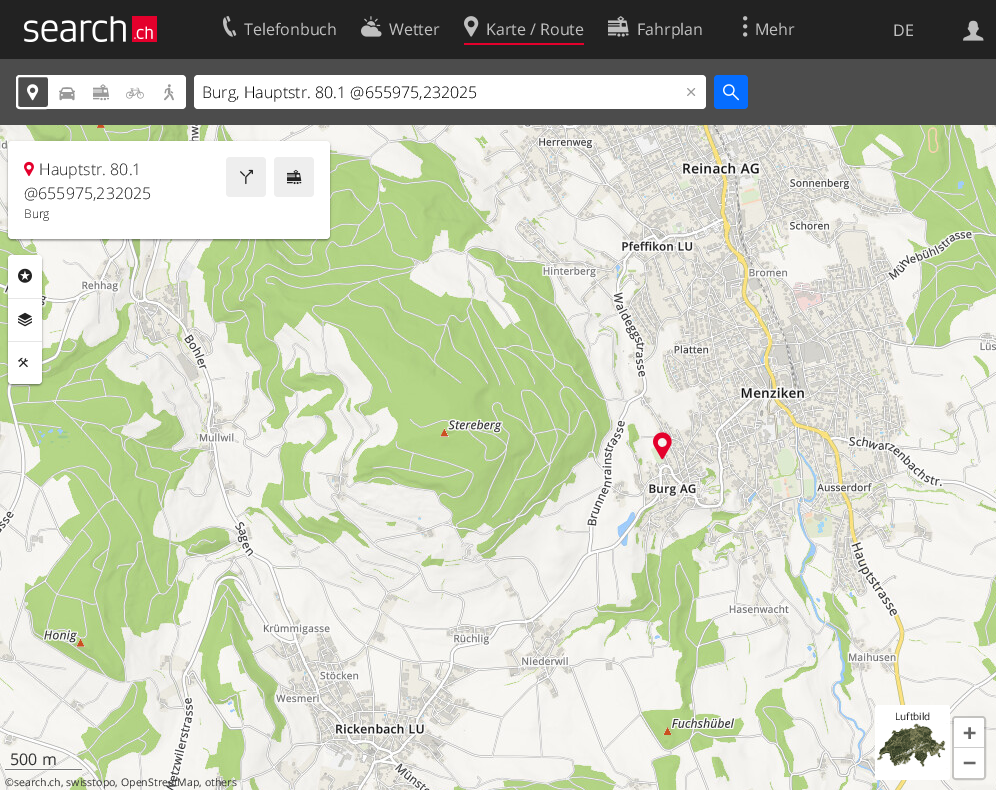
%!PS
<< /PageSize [996 790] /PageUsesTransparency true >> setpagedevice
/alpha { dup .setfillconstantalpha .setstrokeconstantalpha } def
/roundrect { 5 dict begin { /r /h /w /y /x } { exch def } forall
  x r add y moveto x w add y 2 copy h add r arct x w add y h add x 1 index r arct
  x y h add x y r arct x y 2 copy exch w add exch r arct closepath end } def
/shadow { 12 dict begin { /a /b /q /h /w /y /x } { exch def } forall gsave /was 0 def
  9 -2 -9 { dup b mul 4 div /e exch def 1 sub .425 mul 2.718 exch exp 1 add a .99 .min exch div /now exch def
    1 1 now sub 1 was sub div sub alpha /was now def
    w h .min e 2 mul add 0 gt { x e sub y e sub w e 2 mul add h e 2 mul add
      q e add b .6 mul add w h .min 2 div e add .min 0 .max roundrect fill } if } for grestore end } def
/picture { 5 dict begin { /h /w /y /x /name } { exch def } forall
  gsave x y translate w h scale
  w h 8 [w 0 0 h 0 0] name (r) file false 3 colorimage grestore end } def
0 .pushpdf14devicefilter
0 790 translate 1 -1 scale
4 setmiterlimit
1 setgray
0 0 996 790 rectfill
0.133 setgray
0 0 996 59 rectfill
(img1.rgb) 24 16 133 26 picture
(img2.rgb) 223 16 14 21 picture
/OpenSans-Regular [16 0 0 -16 0 0] selectfont
0.749 setgray
244 35 moveto (Telefonbuch) show
(img3.rgb) 361 16 21 21 picture
389 35 moveto (Wetter) show
0.894 0 0.173 setrgbcolor
464 43 120 2 rectfill
(img4.rgb) 464 16 15 21 picture
0.749 setgray
486 35 moveto (Karte / Route) show
(img5.rgb) 608 16 21 21 picture
637 35 moveto (Fahrplan) show
(img6.rgb) 743 16 5 21 picture
755 35 moveto (Mehr) show
893 36 moveto (DE) show
(img7.rgb) 963 20 21 21 picture
0.298 setgray
0 59 996 66 rectfill
1 setgray
16 75 170 34 4 roundrect fill
0.298 setgray
17 76 32 32 3 roundrect gsave fill grestore
1 setgray
2 setlinewidth
stroke
(img8.rgb) 27 84 12 17 picture
(img9.rgb) 59 87 16 14 picture
(img10.rgb) 93 84 17 17 picture
(img11.rgb) 126 87 18 12 picture
(img12.rgb) 164 84 10 17 picture
194 75 512 34 4 roundrect fill
/OpenSans-Light [16 0 0 -16 0 0] selectfont
0 setgray
202 98 moveto (Burg, Hauptstr. 80.1 @655975,232025) show
(img13.rgb) 687 88 9 8 picture
0.02 0.427 1 setrgbcolor
714 75 34 34 4 roundrect fill
(img14.rgb) 723 84 16 17 picture
(img22.rgb) 0 125 104 116 picture
(img23.rgb) 104 125 512 116 picture
(img25.rgb) 0 241 104 512 picture
(img26.rgb) 104 241 512 512 picture
(img31.rgb) 0 125 104 25 picture
(img32.rgb) 104 125 490 25 picture
gsave
newpath 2 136 moveto 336 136 lineto 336 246 lineto 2 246 lineto closepath 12 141 moveto 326 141 lineto 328 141 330 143 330 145 curveto 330 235 lineto 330 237 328 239 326 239 curveto 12 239 lineto 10 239 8 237 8 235 curveto 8 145 lineto 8 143 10 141 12 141 curveto closepath eoclip newpath
0 setgray
8 142 322 98 4 1.5 0.2 shadow
grestore
0 setgray
8 143 322 98 4 0.5 0.12 shadow
8 142 322 98 4 0.5 0.14 shadow
1 setgray
8 141 322 98 4 roundrect fill
(img15.rgb) 24 161 10 16 picture
0.133 setgray
39 175 moveto (Hauptstr. 80.1) show
24 199 moveto (@655975,232025) show
0.933 setgray
226 157 40 40 4 roundrect fill
(img16.rgb) 240 169 13 16 picture
274 157 40 40 4 roundrect fill
(img17.rgb) 287 169 15 16 picture
/OpenSans-Light [12 0 0 -12 0 0] selectfont
0.067 setgray
24 218 moveto (Burg) show
(img34.rgb) 0 280 104 367 picture
gsave
newpath 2 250 moveto 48 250 lineto 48 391 lineto 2 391 lineto closepath 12 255 moveto 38 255 lineto 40 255 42 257 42 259 curveto 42 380 lineto 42 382 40 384 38 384 curveto 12 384 lineto 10 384 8 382 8 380 curveto 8 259 lineto 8 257 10 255 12 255 curveto closepath eoclip newpath
0 setgray
8 256 34 129 4 1.5 0.2 shadow
grestore
0 setgray
8 257 34 129 4 0.5 0.12 shadow
8 256 34 129 4 0.5 0.14 shadow
1 setgray
8 255 34 129 4 roundrect fill
gsave
8 255 34 129 3 roundrect clip newpath
newpath 12 255 moveto 38 255 lineto 40 255 42 257 42 259 curveto 42 299 lineto 8 299 lineto 8 259 lineto 8 257 10 255 12 255 curveto closepath fill
grestore
0.902 setgray
8 298 34 1 rectfill
(img18.rgb) 18 268 14 15 picture
8 341 34 1 rectfill
(img19.rgb) 18 312 14 15 picture
gsave
8 255 34 129 3 roundrect clip newpath
1 setgray
newpath 8 342 moveto 42 342 lineto 42 380 lineto 42 382 40 384 38 384 curveto 12 384 lineto 10 384 8 382 8 380 curveto closepath fill
grestore
(img20.rgb) 18 357 10 11 picture
(img27.rgb) 616 241 380 512 picture
(img30.rgb) 616 753 380 37 picture
(img36.rgb) 616 241 380 494 picture
1 setgray
875 705 75 75 3 roundrect fill
(img21.rgb) 877 723 71 46 picture
/OpenSans-Regular [10 0 0 -10 0 0] selectfont
0.133 setgray
895 720 moveto (Luftbild) show
(img24.rgb) 616 125 380 116 picture
(img28.rgb) 0 753 104 37 picture
(img29.rgb) 104 753 512 37 picture
(img33.rgb) 620 161 353 80 picture
(img35.rgb) 104 265 512 488 picture
(img37.rgb) 164 753 267 37 picture
(img38.rgb) 653 432 19 28 picture
0.2 alpha
0 setgray
953 717 32 62 3 roundrect stroke
1 alpha
1 setgray
newpath 956 718 moveto 982 718 lineto 983 718 984 719 984 720 curveto 984 748 lineto 954 748 lineto 954 720 lineto 954 719 955 718 956 718 curveto closepath fill
0.8 setgray
954 747 30 1 rectfill
/DejaVuSansMono-Bold [22 0 0 -22 0 0] selectfont
0.4 setgray
963 740 moveto (+) show
1 setgray
newpath 954 748 moveto 984 748 lineto 984 776 lineto 984 777 983 778 982 778 curveto 956 778 lineto 955 778 954 777 954 776 curveto closepath fill
0.4 setgray
963 770 moveto (−) show
0.5 alpha
1 setgray
5 770 77 1 rectfill
5 768 77 1 rectfill
1 alpha
0.467 setgray
5 769 77 1 rectfill
/OpenSans-Regular [16 0 0 -16 0 0] selectfont
0.2 setgray
10 765 moveto (500 m) show
/OpenSans-Regular [10.6 0 0 -10.6 0 0] selectfont
5 786 moveto (©search.ch, swisstopo, OpenStreetMap, others) show
.poppdf14devicefilter showpage
